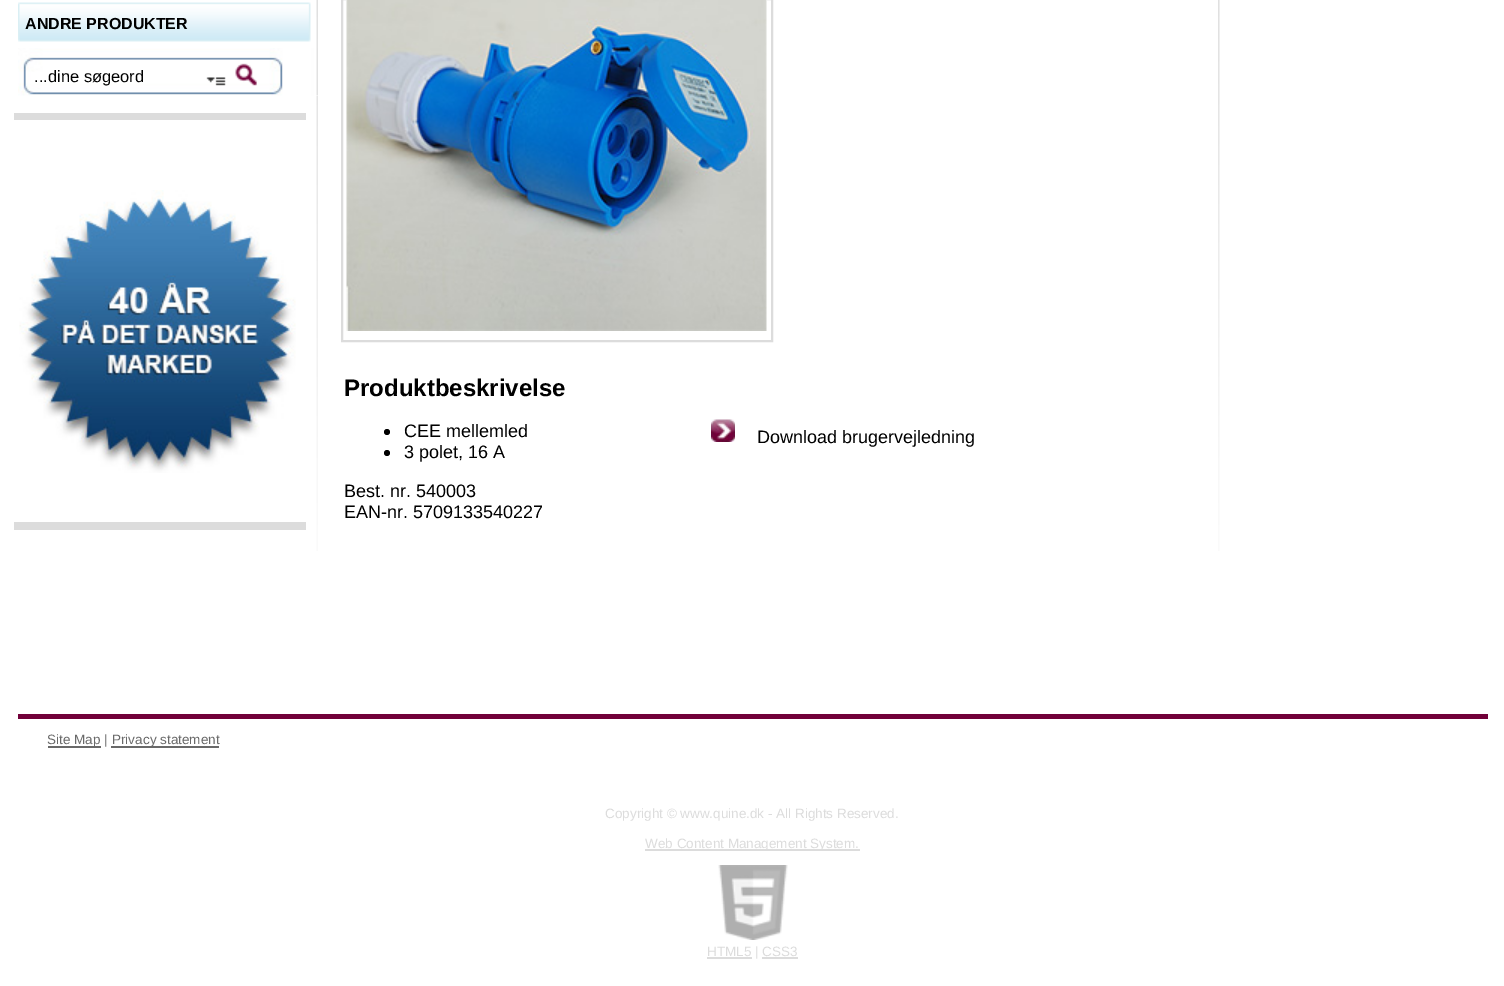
%!PS
<< /PageSize [1504 986] >> setpagedevice
/picture { 5 dict begin { /h /w /y /x /name } { exch def } forall
  gsave x y translate w h scale
  w h 8 [w 0 0 h 0 0] name (r) file false 3 colorimage grestore end } def
0 986 translate 1 -1 scale
4 setmiterlimit
1 setgray
0 0 1504 986 rectfill
(img1.rgb) 316 0 2 551 picture
(img2.rgb) 18 2 293 40 picture
/LiberationSans-Bold [16 0 0 -16 0 0] selectfont
0 setgray
25 29 moveto (ANDRE PRODUKTER) show
1 setgray
316 95 2 1 rectfill
(img3.rgb) 18 48 300 48 picture
/LiberationSans-Regular [16.5 0 0 -16.5 0 0] selectfont
0 setgray
34 82 moveto (...dine søgeord) show
(img4.rgb) 206 77 20 9 picture
(img5.rgb) 235 63 22 23 picture
0.863 setgray
14 113 292 7 rectfill
14 522 292 8 rectfill
(img6.rgb) 19 190 277 283 picture
(img7.rgb) 1218 0 2 551 picture
2 setlinewidth
342 -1 430 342 rectstroke
(img8.rgb) 346 0 421 331 picture
/LiberationSans-Bold [24 0 0 -24 0 0] selectfont
0 setgray
344 396 moveto (Produktbeskrivelse) show
newpath 387 432 3 0 360 arc closepath fill
/LiberationSans-Regular [18 0 0 -18 0 0] selectfont
404 437 moveto (CEE mellemled) show
newpath 387 453 3 0 360 arc closepath fill
404 458 moveto (3 polet, 16 A) show
344 497 moveto (Best. nr. 540003) show
344 518 moveto (EAN-nr. 5709133540227) show
(img9.rgb) 711 419 24 23 picture
757 443 moveto (Download brugervejledning) show
0.443 0 0.224 setrgbcolor
18 714 1470 5 rectfill
0.412 setgray
48 746 53 2 rectfill
/LiberationSans-Regular [13.5 0 0 -13.5 0 0] selectfont
47 744 moveto (Site Map |) show
111 746 108 2 rectfill
112 744 moveto (Privacy statement) show
0.863 setgray
605 818 moveto (Copyright © www.quine.dk - All Rights Reserved.) show
645 849 215 2 rectfill
645 848 moveto (Web Content Management System.) show
(img10.rgb) 718 865 70 75 picture
707 957 45 2 rectfill
707 956 moveto (HTML5 | CSS3) show
762 957 36 2 rectfill
showpage
